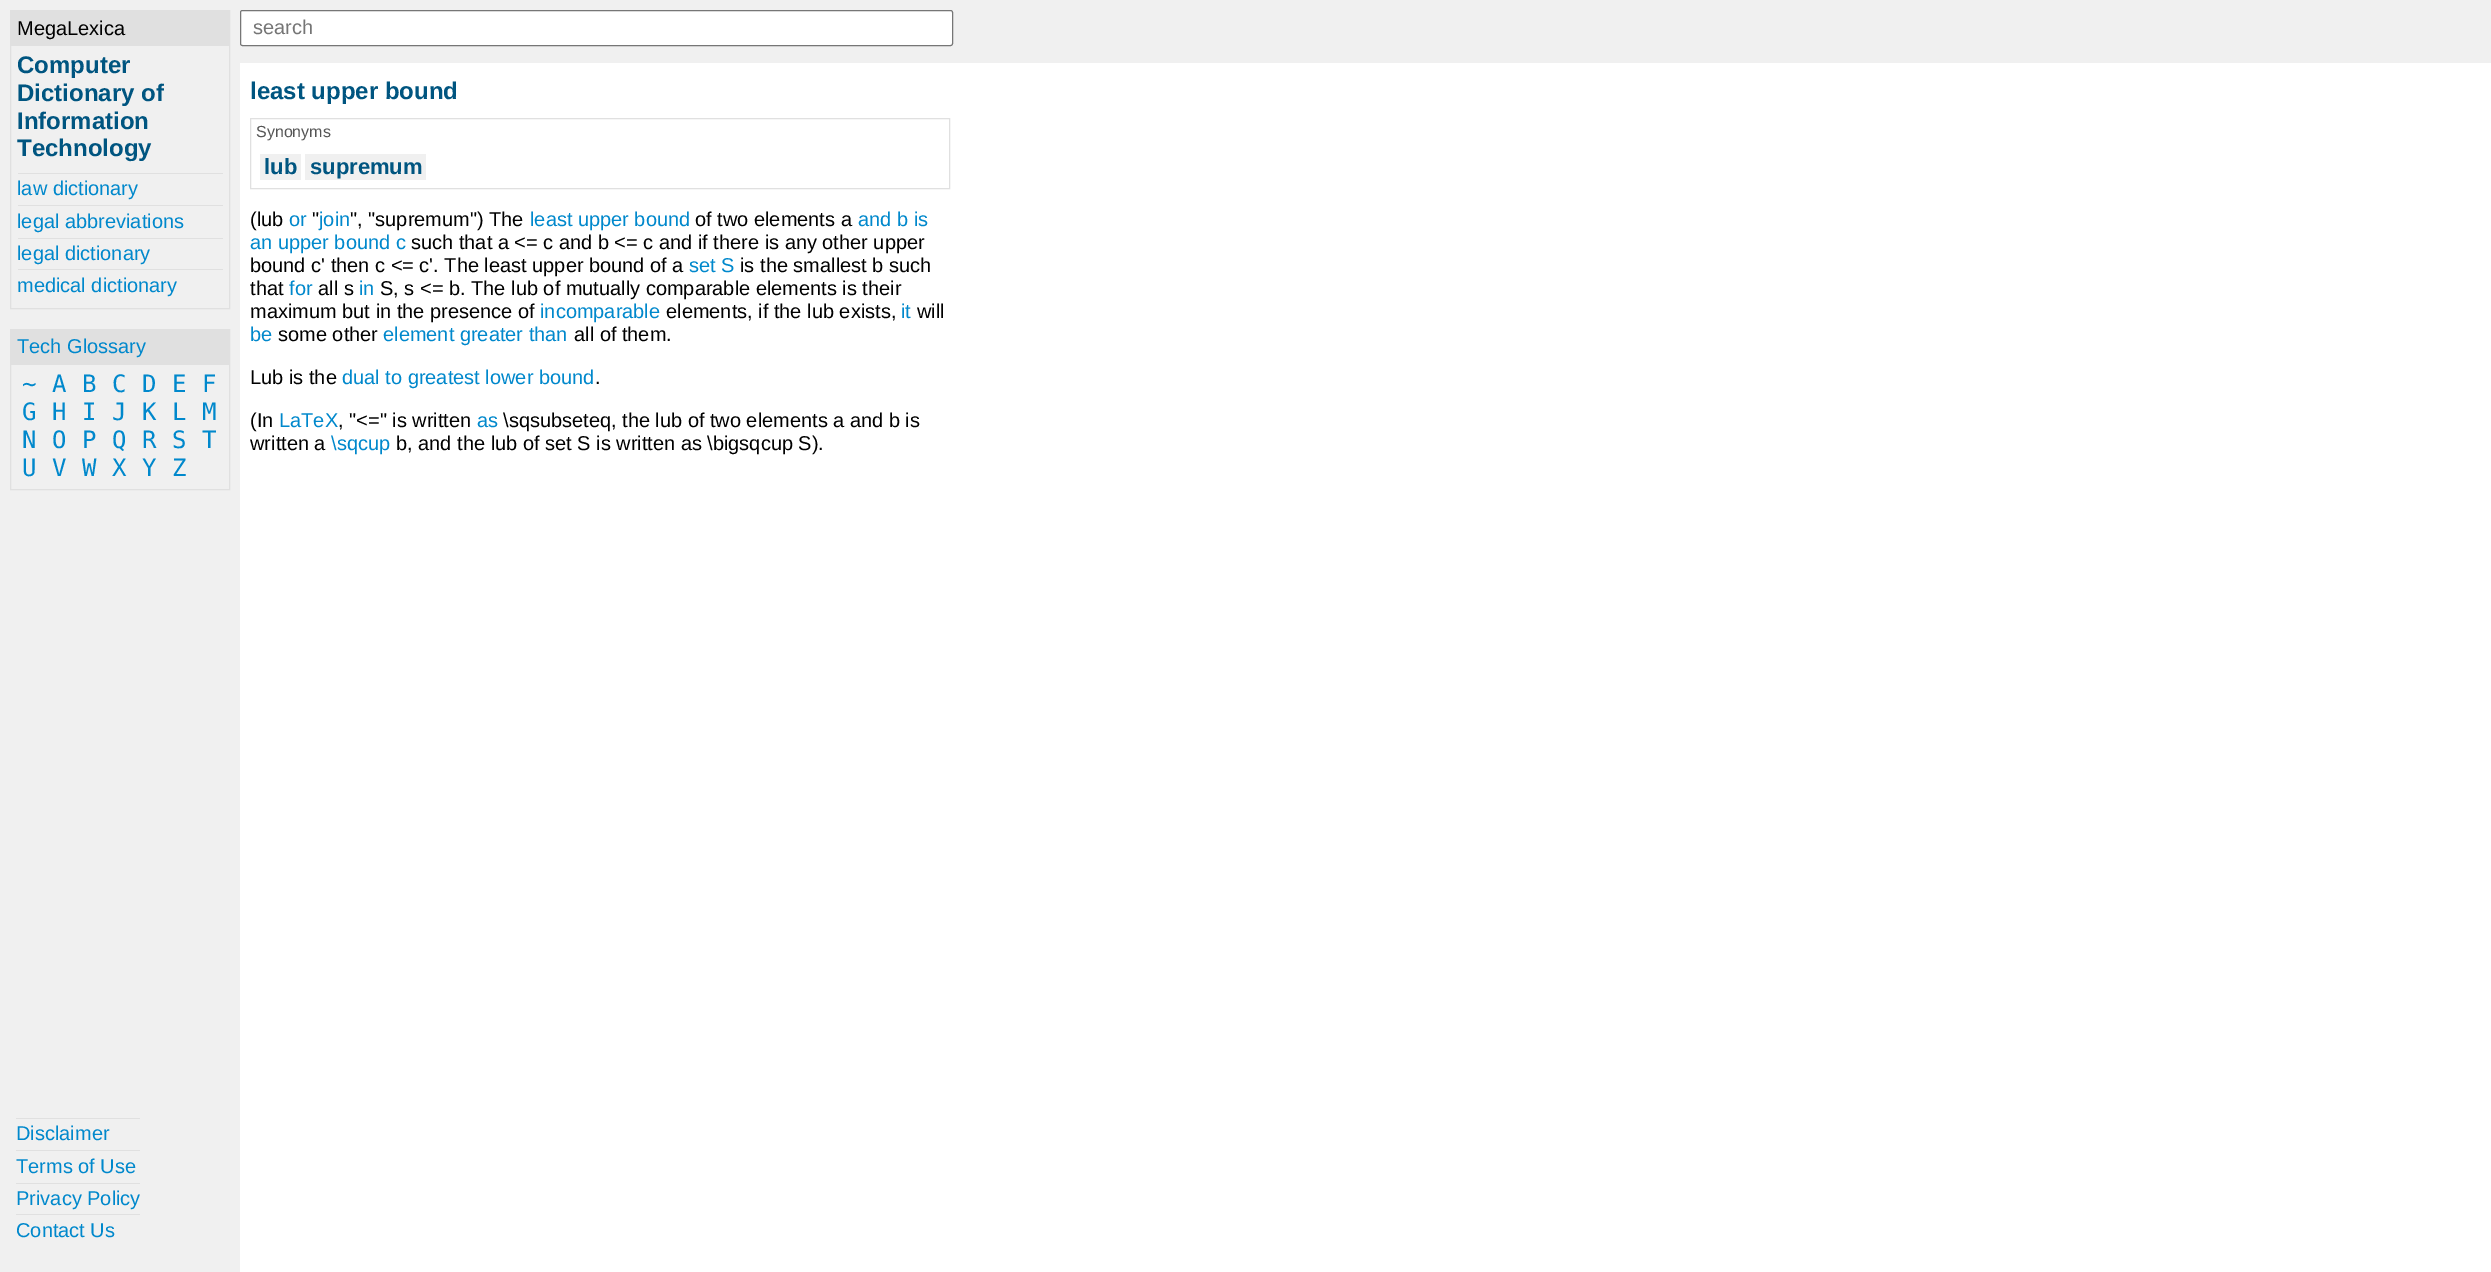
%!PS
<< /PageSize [2491 1272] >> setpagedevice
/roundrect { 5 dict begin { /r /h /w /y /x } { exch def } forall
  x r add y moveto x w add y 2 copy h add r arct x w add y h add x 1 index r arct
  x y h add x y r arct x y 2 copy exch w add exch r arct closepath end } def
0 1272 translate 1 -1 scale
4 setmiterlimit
1 setgray
0 0 2491 1272 rectfill
0.941 setgray
0 0 240 1272 rectfill
0.878 setgray
10.5 10.5 219 298 rectstroke
11 11 218 35 rectfill
/LiberationSans-Regular [20 0 0 -20 0 0] selectfont
0 setgray
17 35 moveto (MegaLexica) show
/LiberationSans-Bold [24 0 0 -24 0 0] selectfont
0 0.333 0.502 setrgbcolor
17 73 moveto (Computer) show
17 101 moveto (Dictionary of) show
17 129 moveto (Information) show
17 156 moveto (Technology) show
0.878 setgray
18 173 205 1 rectfill
/LiberationSans-Regular [20 0 0 -20 0 0] selectfont
0 0.533 0.8 setrgbcolor
17 195 moveto (law dictionary) show
0.878 setgray
18 205 205 1 rectfill
0 0.533 0.8 setrgbcolor
17 228 moveto (legal abbreviations) show
0.878 setgray
18 238 205 1 rectfill
0 0.533 0.8 setrgbcolor
17 260 moveto (legal dictionary) show
0.878 setgray
18 269 205 1 rectfill
0 0.533 0.8 setrgbcolor
17 292 moveto (medical dictionary) show
0.878 setgray
10.5 329.5 219 160 rectstroke
11 330 218 35 rectfill
0 0.533 0.8 setrgbcolor
17 353 moveto (Tech Glossary) show
/DejaVuSansMono-Regular [24 0 0 -24 0 0] selectfont
22 392 moveto (~) show
52 392 moveto (A) show
82 392 moveto (B) show
112 392 moveto (C) show
142 392 moveto (D) show
172 392 moveto (E) show
202 392 moveto (F) show
22 420 moveto (G) show
52 420 moveto (H) show
82 420 moveto (I) show
112 420 moveto (J) show
142 420 moveto (K) show
172 420 moveto (L) show
202 420 moveto (M) show
22 448 moveto (N) show
52 448 moveto (O) show
82 448 moveto (P) show
112 448 moveto (Q) show
142 448 moveto (R) show
172 448 moveto (S) show
202 448 moveto (T) show
22 476 moveto (U) show
52 476 moveto (V) show
82 476 moveto (W) show
112 476 moveto (X) show
142 476 moveto (Y) show
172 476 moveto (Z) show
0.878 setgray
16 1118 124 1 rectfill
/LiberationSans-Regular [20 0 0 -20 0 0] selectfont
0 0.533 0.8 setrgbcolor
16 1140 moveto (Disclaimer) show
0.878 setgray
16 1150 124 1 rectfill
0 0.533 0.8 setrgbcolor
16 1173 moveto (Terms of Use) show
0.878 setgray
16 1183 124 1 rectfill
0 0.533 0.8 setrgbcolor
16 1205 moveto (Privacy Policy) show
0.878 setgray
16 1214 124 1 rectfill
0 0.533 0.8 setrgbcolor
16 1237 moveto (Contact Us) show
0.941 setgray
240 0 2251 63 rectfill
1 setgray
240.5 10.5 712 35 2 roundrect gsave fill grestore
0.463 setgray
stroke
0.459 setgray
253 34 moveto (search) show
/LiberationSans-Bold [24 0 0 -24 0 0] selectfont
0 0.333 0.502 setrgbcolor
250 99 moveto (least upper bound) show
0.878 setgray
250.5 118.5 699 70 rectstroke
/LiberationSans-Regular [16 0 0 -16 0 0] selectfont
0.333 setgray
256 137 moveto (Synonyms) show
0.941 setgray
260 154 41 26 rectfill
/LiberationSans-Bold [22 0 0 -22 0 0] selectfont
0 0.333 0.502 setrgbcolor
264 174 moveto (lub) show
0.941 setgray
305 154 121 26 rectfill
0 0.333 0.502 setrgbcolor
310 174 moveto (supremum) show
/LiberationSans-Regular [20 0 0 -20 0 0] selectfont
0 setgray
250 226 moveto (\(lub) show
312 226 moveto (") show
0 0.533 0.8 setrgbcolor
319 226 moveto (join) show
0 setgray
350 226 moveto (", "supremum"\) The) show
0 0.533 0.8 setrgbcolor
530 226 moveto (least upper bound) show
0 setgray
695 226 moveto (of two elements a) show
0 0.533 0.8 setrgbcolor
858 226 moveto (and b is) show
289 226 moveto (or) show
250 249 moveto (an upper bound c) show
0 setgray
411 249 moveto (such that a <= c and b <= c and if there is any other upper) show
250 272 moveto (bound c' then c <= c'. The least upper bound of a) show
0 0.533 0.8 setrgbcolor
689 272 moveto (set S) show
0 setgray
740 272 moveto (is the smallest b such) show
250 295 moveto (that) show
0 0.533 0.8 setrgbcolor
289 295 moveto (for) show
0 setgray
318 295 moveto (all s) show
0 0.533 0.8 setrgbcolor
359 295 moveto (in) show
0 setgray
380 295 moveto (S, s <= b. The lub of mutually comparable elements is their) show
250 318 moveto (maximum but in the presence of) show
0 0.533 0.8 setrgbcolor
540 318 moveto (incomparable) show
0 setgray
666 318 moveto (elements, if the lub exists,) show
0 0.533 0.8 setrgbcolor
901 318 moveto (it) show
0 setgray
917 318 moveto (will) show
0 0.533 0.8 setrgbcolor
250 341 moveto (be) show
0 setgray
278 341 moveto (some other) show
0 0.533 0.8 setrgbcolor
383 341 moveto (element greater than) show
0 setgray
574 341 moveto (all of them.) show
250 384 moveto (Lub is the) show
0 0.533 0.8 setrgbcolor
342 384 moveto (dual to greatest lower bound) show
0 setgray
595 384 moveto (.) show
250 427 moveto (\(In) show
0 0.533 0.8 setrgbcolor
279 427 moveto (LaTeX) show
0 setgray
338 427 moveto (, "<=" is written) show
0 0.533 0.8 setrgbcolor
477 427 moveto (as) show
0 setgray
503 427 moveto (\\sqsubseteq, the lub of two elements a and b is) show
250 450 moveto (written a) show
0 0.533 0.8 setrgbcolor
331 450 moveto (\\sqcup) show
0 setgray
396 450 moveto (b, and the lub of set S is written as \\bigsqcup S\).) show
showpage
